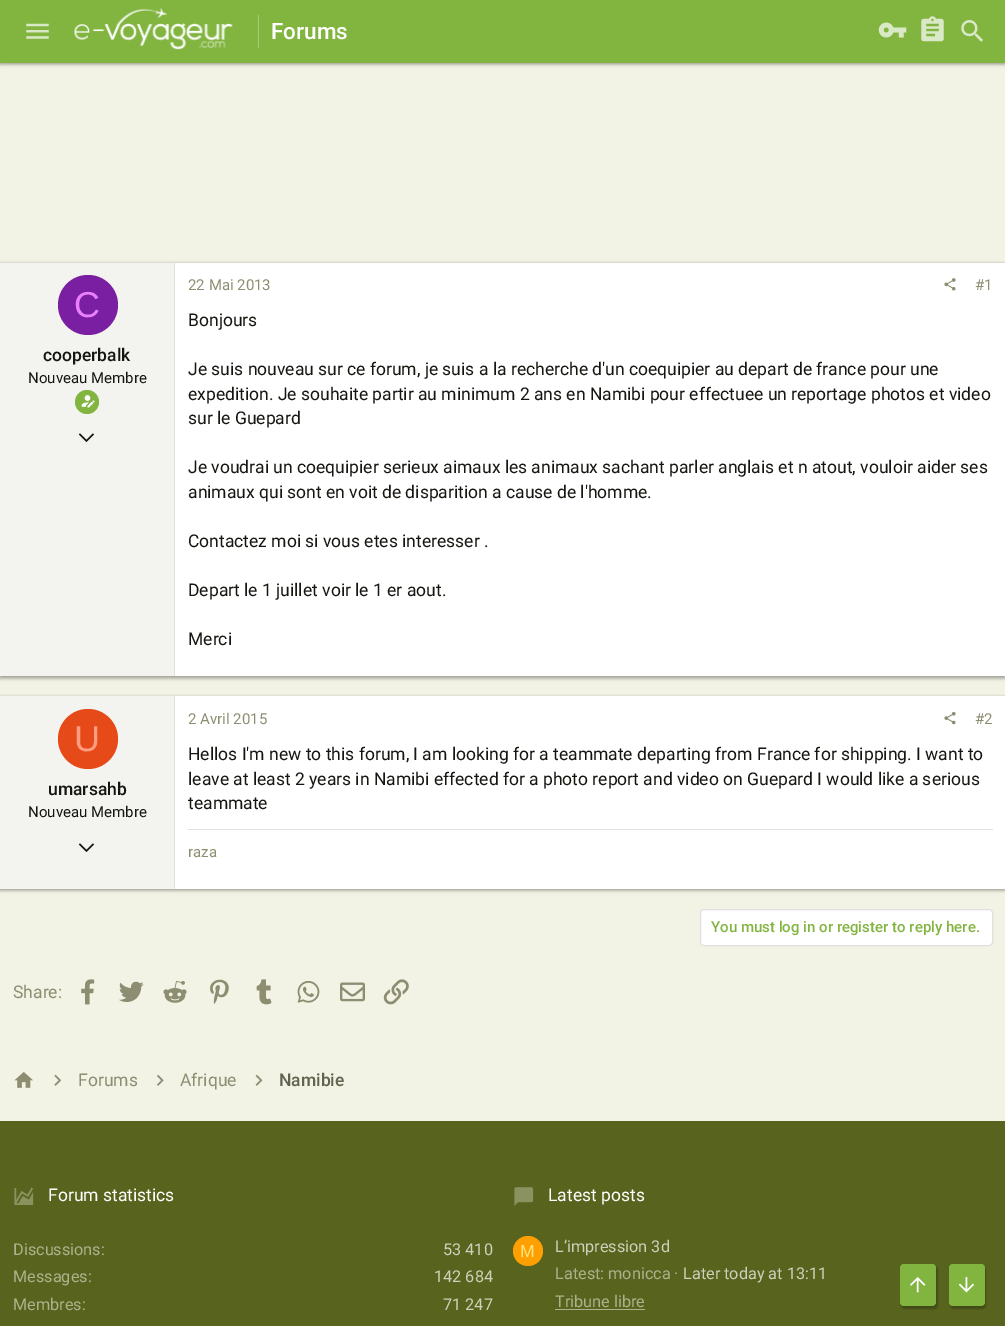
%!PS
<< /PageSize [1005 1326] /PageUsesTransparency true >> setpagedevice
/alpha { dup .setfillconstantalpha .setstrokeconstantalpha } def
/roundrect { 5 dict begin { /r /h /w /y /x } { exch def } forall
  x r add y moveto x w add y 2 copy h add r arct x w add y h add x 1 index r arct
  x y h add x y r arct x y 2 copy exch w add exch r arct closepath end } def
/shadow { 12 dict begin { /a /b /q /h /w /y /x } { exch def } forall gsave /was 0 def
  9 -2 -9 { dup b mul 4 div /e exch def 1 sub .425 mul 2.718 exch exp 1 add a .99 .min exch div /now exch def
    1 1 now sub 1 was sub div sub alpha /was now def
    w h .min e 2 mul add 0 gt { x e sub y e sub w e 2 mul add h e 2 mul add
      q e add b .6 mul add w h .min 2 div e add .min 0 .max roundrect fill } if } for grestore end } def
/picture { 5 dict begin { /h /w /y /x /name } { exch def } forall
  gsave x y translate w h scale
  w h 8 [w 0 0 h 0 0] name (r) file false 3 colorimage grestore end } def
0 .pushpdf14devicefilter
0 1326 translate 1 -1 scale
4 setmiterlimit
0.949 0.949 0.898 setrgbcolor
0 0 1005 1326 rectfill
0 setgray
0 1 1005 63 0 2 0.2 shadow
0 3 1005 62 0 1 0.12 shadow
0 0 1005 63 0 1 0.14 shadow
0.51 0.706 0.251 setrgbcolor
0 0 1005 63 rectfill
(img1.rgb) 26 23 23 16 picture
(img2.rgb) 74 7 159 43 picture
0.659 0.796 0.475 setrgbcolor
258 15 1 33 rectfill
/Roboto-Medium [22.5 0 0 -22.5 0 0] selectfont
1 setgray
271 39 moveto (Forums) show
(img3.rgb) 878 22 29 16 picture
(img4.rgb) 921 16 23 26 picture
(img5.rgb) 961 20 22 22 picture
0 setgray
0 264 1005 414 0 2 0.2 shadow
0 265 1005 414 0 1 0.12 shadow
0 263 1005 413 0 1 0.14 shadow
1 setgray
175 263 830 413 rectfill
0.953 0.953 0.941 setrgbcolor
0 263 174 413 rectfill
0.878 setgray
174 263 1 413 rectfill
0.482 0.122 0.635 setrgbcolor
newpath 88 305 30 0 360 arc closepath fill
/LiberationSans-Regular [36 0 0 -36 0 0] selectfont
0.918 0.502 0.988 setrgbcolor
74 317 moveto (C) show
/Roboto-Medium [17.5 0 0 -17.5 0 0] selectfont
0.086 0.086 0.067 setrgbcolor
43 361 moveto (cooperbalk) show
/Roboto-Regular [15 0 0 -15 0 0] selectfont
28 383 moveto (Nouveau Membre) show
0.51 0.706 0.251 setrgbcolor
newpath 87 402 12 0 360 arc closepath fill
(img6.rgb) 81 395 14 13 picture
(img7.rgb) 78 433 16 9 picture
0.553 0.553 0.443 setrgbcolor
188 290 moveto (22 Mai 2013) show
(img8.rgb) 944 278 12 13 picture
975 290 moveto (#1) show
/Roboto-Regular [17.5 0 0 -17.5 0 0] selectfont
0.086 0.086 0.067 setrgbcolor
188 326 moveto (Bonjours) show
188 375 moveto (Je suis nouveau sur ce forum, je suis a la recherche d'un coequipier au depart de france pour une) show
188 400 moveto (expedition. Je souhaite partir au minimum 2 ans en Namibi pour effectuee un reportage photos et video) show
188 424 moveto (sur le Guepard) show
188 473 moveto (Je voudrai un coequipier serieux aimaux les animaux sachant parler anglais et n atout, vouloir aider ses) show
188 498 moveto (animaux qui sont en voit de disparition a cause de l'homme.) show
188 547 moveto (Contactez moi si vous etes interesser .) show
188 596 moveto (Depart le 1 juillet voir le 1 er aout.) show
188 645 moveto (Merci) show
0 setgray
0 698 1005 192 0 2 0.2 shadow
0 699 1005 192 0 1 0.12 shadow
0 696 1005 193 0 1 0.14 shadow
1 setgray
175 696 830 193 rectfill
0.953 0.953 0.941 setrgbcolor
0 696 174 193 rectfill
0.878 setgray
174 696 1 193 rectfill
0.902 0.29 0.098 setrgbcolor
newpath 88 739 30 0 360 arc closepath fill
/LiberationSans-Regular [36 0 0 -36 0 0] selectfont
1 0.62 0.502 setrgbcolor
74 751 moveto (U) show
/Roboto-Medium [17.5 0 0 -17.5 0 0] selectfont
0.086 0.086 0.067 setrgbcolor
48 795 moveto (umarsahb) show
/Roboto-Regular [15 0 0 -15 0 0] selectfont
28 817 moveto (Nouveau Membre) show
(img7.rgb) 78 843 16 9 picture
0.553 0.553 0.443 setrgbcolor
188 724 moveto (2 Avril 2015) show
(img9.rgb) 944 711 12 14 picture
975 724 moveto (#2) show
/Roboto-Regular [17.5 0 0 -17.5 0 0] selectfont
0.086 0.086 0.067 setrgbcolor
188 760 moveto (Hellos I'm new to this forum, I am looking for a teammate departing from France for shipping. I want to) show
188 785 moveto (leave at least 2 years in Namibi effected for a photo report and video on Guepard I would like a serious) show
188 809 moveto (teammate) show
0.878 setgray
188 829 805 1 rectfill
/Roboto-Regular [15 0 0 -15 0 0] selectfont
0.553 0.553 0.443 setrgbcolor
188 857 moveto (raza) show
1 setgray
700.5 909.5 292 36 3.5 roundrect gsave fill grestore
0.878 setgray
stroke
/Roboto-Medium [15 0 0 -15 0 0] selectfont
0.51 0.706 0.251 setrgbcolor
711 932 moveto (You must log in or register to reply here.) show
/Roboto-Regular [17.5 0 0 -17.5 0 0] selectfont
0.553 0.553 0.443 setrgbcolor
13 998 moveto (Share:) show
(img10.rgb) 81 979 14 26 picture
(img11.rgb) 119 981 25 21 picture
(img12.rgb) 163 981 24 22 picture
(img13.rgb) 210 979 19 25 picture
(img14.rgb) 256 979 16 26 picture
(img15.rgb) 297 980 23 23 picture
(img16.rgb) 340 982 25 20 picture
(img17.rgb) 383 979 26 26 picture
(img18.rgb) 14 1072 19 16 picture
(img19.rgb) 54 1074 8 12 picture
78 1086 moveto (Forums) show
(img20.rgb) 156 1074 8 12 picture
180 1086 moveto (Afrique) show
(img21.rgb) 255 1074 8 12 picture
/Roboto-Medium [17.5 0 0 -17.5 0 0] selectfont
0.384 0.384 0.31 setrgbcolor
279 1086 moveto (Namibie) show
0.345 0.392 0.114 setrgbcolor
0 1121 1005 205 rectfill
(img22.rgb) 14 1187 20 18 picture
/Roboto-Regular [17.5 0 0 -17.5 0 0] selectfont
1 setgray
48 1201 moveto (Forum statistics) show
/Roboto-Regular [16.25 0 0 -16.25 0 0] selectfont
0.675 0.698 0.557 setrgbcolor
13 1255 moveto (Discussions:) show
0.804 0.82 0.733 setrgbcolor
443 1255 moveto (53 410) show
0.675 0.698 0.557 setrgbcolor
13 1282 moveto (Messages:) show
0.804 0.82 0.733 setrgbcolor
434 1282 moveto (142 684) show
0.675 0.698 0.557 setrgbcolor
13 1310 moveto (Membres:) show
0.804 0.82 0.733 setrgbcolor
443 1310 moveto (71 247) show
(img23.rgb) 514 1187 20 19 picture
/Roboto-Regular [17.5 0 0 -17.5 0 0] selectfont
1 setgray
548 1201 moveto (Latest posts) show
1 0.627 0 setrgbcolor
newpath 528 1251 15 0 360 arc closepath fill
/LiberationSans-Regular [17.5 0 0 -17.5 0 0] selectfont
1 0.898 0.498 setrgbcolor
520 1257 moveto (M) show
/Roboto-Regular [16.25 0 0 -16.25 0 0] selectfont
0.804 0.82 0.733 setrgbcolor
555 1252 moveto (L’impression 3d) show
0.675 0.698 0.557 setrgbcolor
555 1279 moveto (Latest: monicca ·) show
0.804 0.82 0.733 setrgbcolor
683 1279 moveto (Later today at 13:11) show
0.675 0.698 0.557 setrgbcolor
555 1307 moveto (Tribune libre) show
555 1309 90 1 rectfill
0 setgray
901 1266 37 43 4 1 0.25 shadow
0.51 0.706 0.251 setrgbcolor
900 1264 36 42 4 roundrect fill
(img24.rgb) 910 1277 16 16 picture
0 setgray
950 1266 36 43 4 1 0.25 shadow
0.51 0.706 0.251 setrgbcolor
949 1264 36 42 4 roundrect fill
(img25.rgb) 958 1277 16 16 picture
.poppdf14devicefilter showpage
